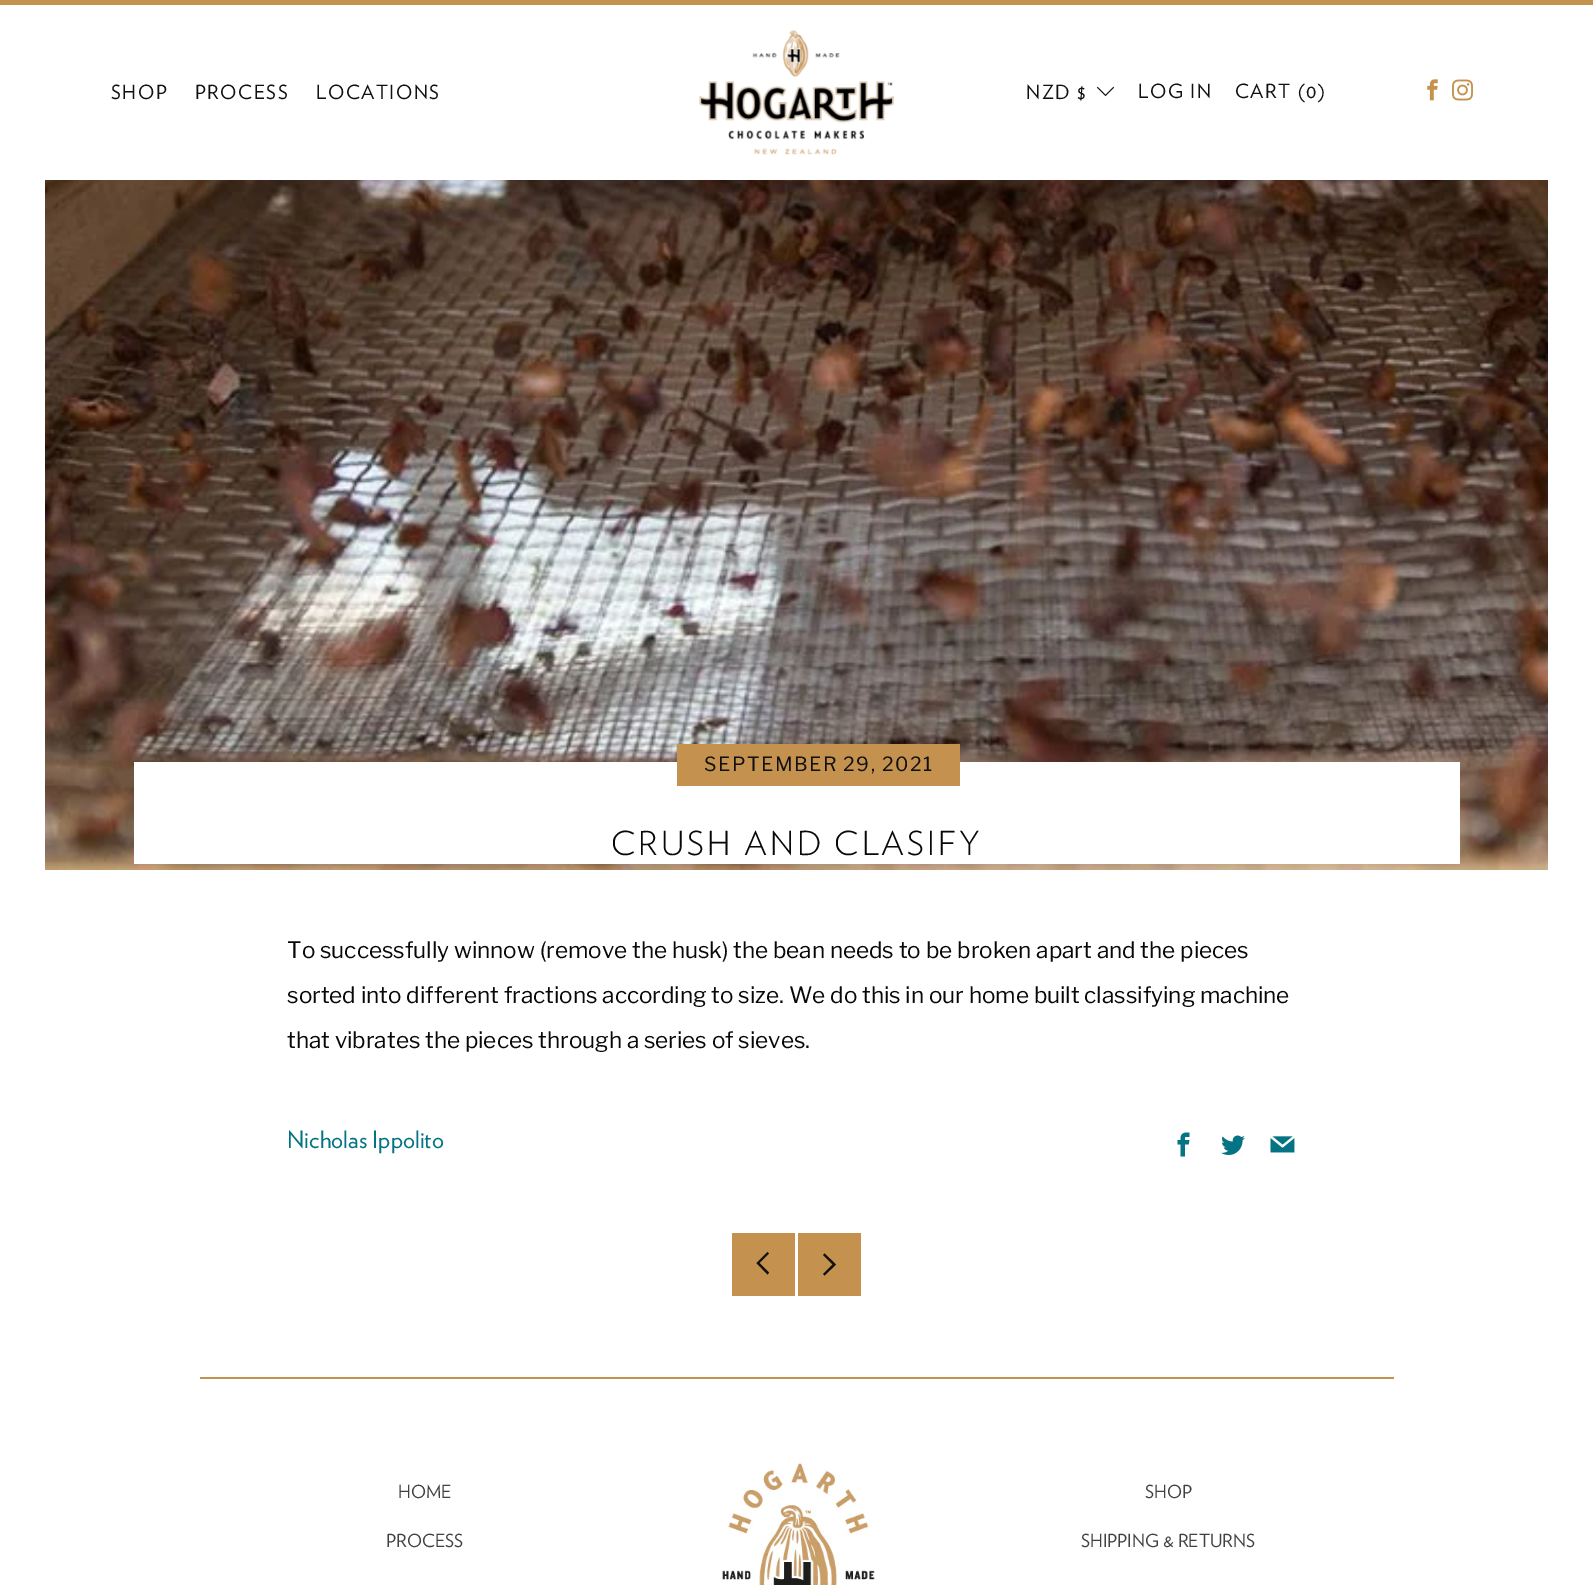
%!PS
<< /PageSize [1593 1585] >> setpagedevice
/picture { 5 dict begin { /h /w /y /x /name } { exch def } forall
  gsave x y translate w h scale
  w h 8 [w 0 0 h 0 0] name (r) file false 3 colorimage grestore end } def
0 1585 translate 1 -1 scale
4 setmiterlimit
1 setgray
0 0 1593 1585 rectfill
0.769 0.573 0.306 setrgbcolor
0 0 1593 5 rectfill
(img1.rgb) 699 30 195 125 picture
/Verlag-Regular [19.5 0 0 -19.5 0 0] selectfont
0.067 setgray
111 99 moveto 1.5 0 (SHOP) ashow
195 99 moveto 1.5 0 (PROCESS) ashow
316 99 moveto 1.5 0 (LOCATIONS) ashow
1026 99 moveto 1.5 0 (NZD $) ashow
(img2.rgb) 1096 86 19 11 picture
1138 98 moveto 1.5 0 (LOG IN) ashow
1235 98 moveto 1.5 0 (CART \(0\)) ashow
(img3.rgb) 1427 79 11 22 picture
(img4.rgb) 1452 79 21 22 picture
(img5.rgb) 45 180 1503 690 picture
1 setgray
134 762 1326 102 rectfill
0.769 0.573 0.306 setrgbcolor
677 744 283 42 rectfill
/LibreFranklin-Regular [19.5 0 0 -19.5 0 0] selectfont
0.067 setgray
704 771 moveto 1.5 0 (SEPTEMBER 29, 2021) ashow
/Verlag-Light [33 0 0 -33 0 0] selectfont
0.031 setgray
611 855 moveto 3 0 (CRUSH AND CLASIFY) ashow
/LibreFranklin-Regular [22.5 0 0 -22.5 0 0] selectfont
287 958 moveto (To successfully winnow \(remove the husk\) the bean needs to be broken apart and the pieces) show
287 1003 moveto (sorted into different fractions according to size. We do this in our home built classifying machine) show
287 1048 moveto (that vibrates the pieces through a series of sieves.) show
/Verlag-Regular [24 0 0 -24 0 0] selectfont
0.016 0.455 0.518 setrgbcolor
287 1148 moveto (Nicholas Ippolito) show
(img6.rgb) 1177 1132 13 25 picture
(img7.rgb) 1221 1135 24 20 picture
(img8.rgb) 1270 1136 25 17 picture
0.769 0.573 0.306 setrgbcolor
732 1233 63 63 rectfill
0.067 setgray
newpath 769 1272.5 moveto 767.5 1274.5 lineto 756.5 1263 lineto 767.5 1252 lineto 769 1253.5 lineto 759.5 1263 lineto closepath fill
0.769 0.573 0.306 setrgbcolor
798 1233 63 63 rectfill
0.067 setgray
newpath 823 1274 moveto 824.5 1275.5 lineto 836 1264.5 lineto 824.5 1253.5 lineto 823 1255 lineto 832.5 1264.5 lineto closepath fill
0.769 0.573 0.306 setrgbcolor
200 1377 1194 2 rectfill
/Verlag-Regular [18 0 0 -18 0 0] selectfont
0.255 setgray
398 1498 moveto (HOME) show
386 1547 moveto (PROCESS) show
(img9.rgb) 722 1462 153 123 picture
1145 1498 moveto (SHOP) show
1081 1547 moveto (SHIPPING & RETURNS) show
showpage
